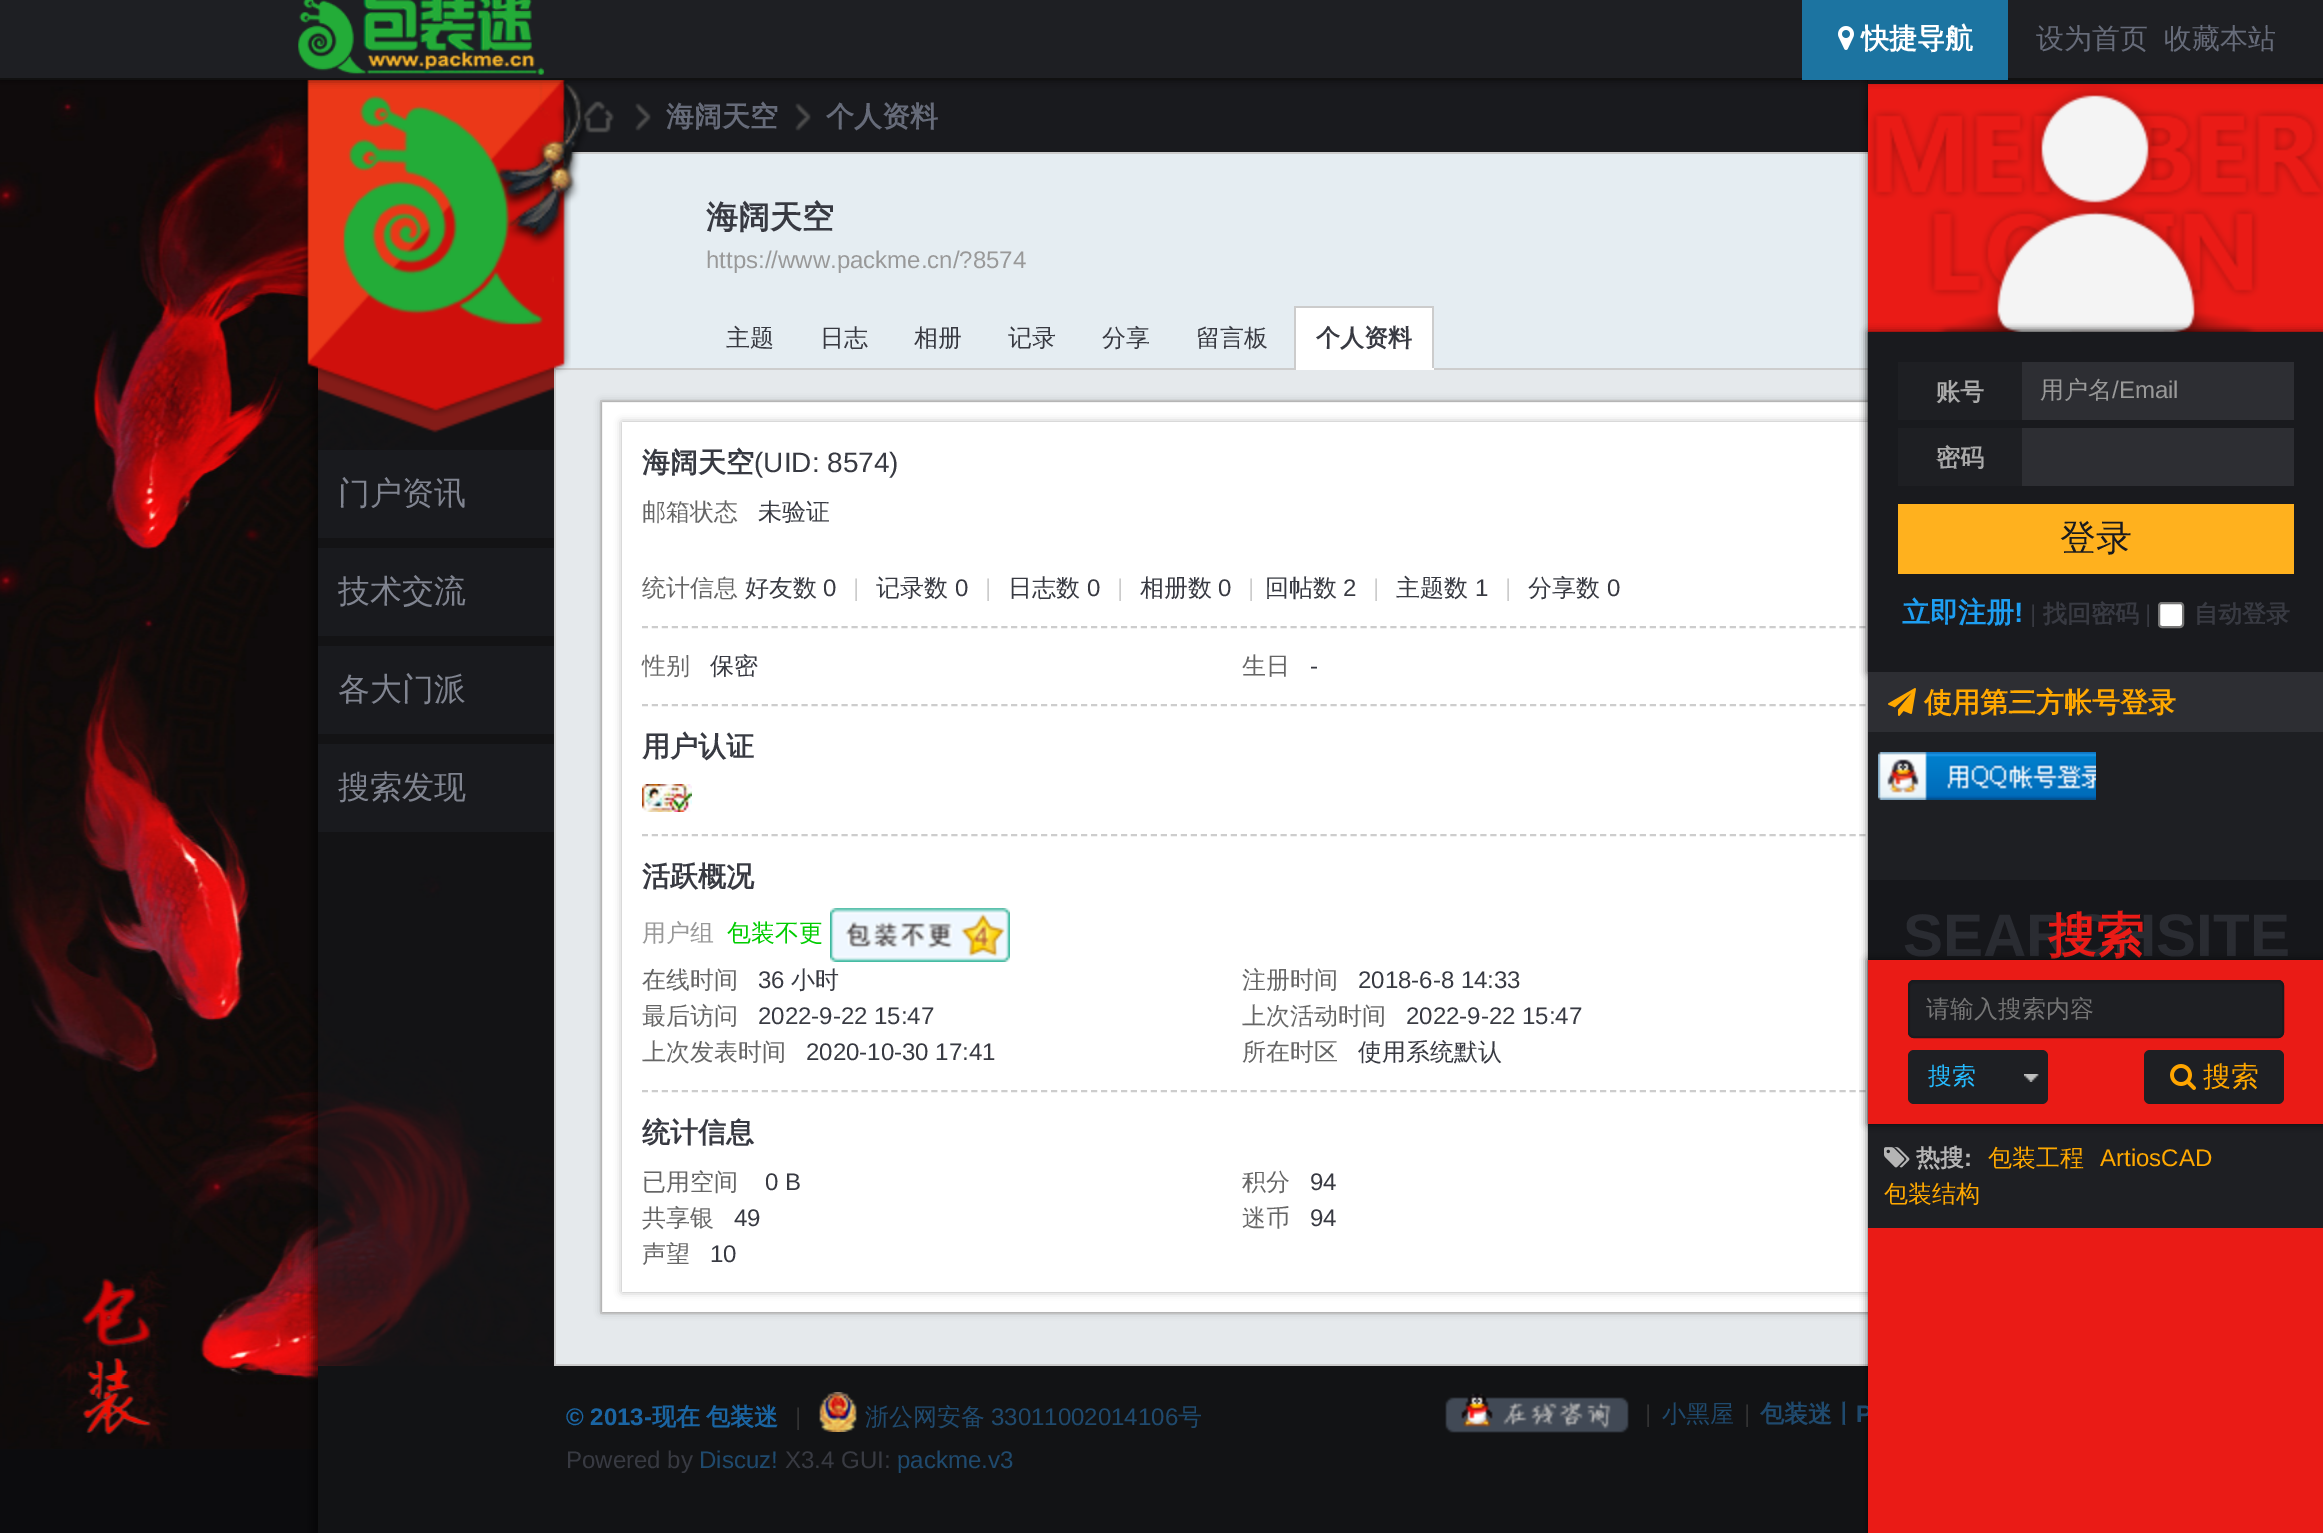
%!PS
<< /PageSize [2323 1533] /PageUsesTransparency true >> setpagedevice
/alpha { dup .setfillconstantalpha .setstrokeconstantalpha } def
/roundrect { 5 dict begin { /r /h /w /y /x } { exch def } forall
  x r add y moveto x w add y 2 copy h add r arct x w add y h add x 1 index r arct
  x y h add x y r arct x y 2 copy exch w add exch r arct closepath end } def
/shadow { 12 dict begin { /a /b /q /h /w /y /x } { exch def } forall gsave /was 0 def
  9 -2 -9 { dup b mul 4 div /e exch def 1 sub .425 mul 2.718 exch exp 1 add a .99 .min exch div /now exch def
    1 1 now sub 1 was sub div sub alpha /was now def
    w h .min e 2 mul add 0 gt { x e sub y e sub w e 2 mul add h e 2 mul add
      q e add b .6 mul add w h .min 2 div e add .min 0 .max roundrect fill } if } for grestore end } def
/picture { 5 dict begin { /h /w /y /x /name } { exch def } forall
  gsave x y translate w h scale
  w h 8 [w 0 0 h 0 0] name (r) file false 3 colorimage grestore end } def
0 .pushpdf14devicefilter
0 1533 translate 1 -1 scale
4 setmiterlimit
0.898 0.914 0.925 setrgbcolor
0 0 2323 1533 rectfill
0.047 0.047 0.055 setrgbcolor
0 387 554 1146 rectfill
(img3.rgb) 0 80 554 1369 picture
0.898 0.929 0.949 setrgbcolor
556 154 1312 214 rectfill
0.8 setgray
554 365 2 5 rectfill
0.804 setgray
556 368 1312 2 rectfill
0.8 setgray
554 1364 1314 2 rectfill
554 370 2 996 rectfill
gsave
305 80 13 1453 rectclip
0 setgray
312 0 236 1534 0 4 0.5 shadow
grestore
0.7 alpha
0.082 0.086 0.098 setrgbcolor
318 387 236 979 rectfill
1 alpha
(img4.rgb) 318 365 236 68 picture
0.098 0.102 0.118 setrgbcolor
563 80 1305 72 rectfill
0.8 setgray
569 152 1299 2 rectfill
(img5.rgb) 301 80 270 336 picture
(img8.rgb) 581 101 33 32 picture
(img6.rgb) 494 80 95 167 picture
(img7.rgb) 343 82 211 243 picture
1 setgray
602 402 1266 910 rectfill
0.835 setgray
2 setlinewidth
601 401 1676 912 rectstroke
gsave
newpath 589 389 moveto 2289 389 lineto 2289 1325 lineto 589 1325 lineto closepath 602 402 moveto 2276 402 lineto 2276 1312 lineto 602 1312 lineto closepath eoclip newpath
0 setgray
602 402 1674 910 0 4 0.3 shadow
grestore
gsave
newpath 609 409 moveto 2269 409 lineto 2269 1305 lineto 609 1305 lineto closepath 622 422 moveto 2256 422 lineto 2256 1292 lineto 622 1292 lineto closepath eoclip newpath
0 setgray
622 422 1634 870 0 4 0.3 shadow
grestore
0.804 setgray
[6 3.98] 0 setdash
newpath 642 705 moveto 2236 705 lineto stroke
newpath 642 627 moveto 2236 627 lineto stroke
newpath 642 835 moveto 2236 835 lineto stroke
newpath 642 1091 moveto 2236 1091 lineto stroke
0.071 0.075 0.082 setrgbcolor
318 1366 1550 167 rectfill
0 setgray
1868 0 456 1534 0 4 0.6 shadow
1868 84 368 62 30 3 0.6 shadow
0.086 0.09 0.106 setrgbcolor
1868 80 455 4 rectfill
0.918 0.106 0.086 setrgbcolor
1868 84 455 248 rectfill
(img12.rgb) 1870 85 453 247 picture
0 setgray
0 -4 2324 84 0 4 0.6 shadow
0.118 0.122 0.137 setrgbcolor
0 0 2323 78 rectfill
0.067 setgray
0 78 2323 2 rectfill
(img1.rgb) 298 0 247 75 picture
0.11 0.455 0.631 setrgbcolor
1802 0 206 80 rectfill
(img2.rgb) 1838 26 16 24 picture
/WenQuanYiZenHei-Bold [28 0 0 -28 0 0] selectfont
1 setgray
1861 48 moveto (快捷导航) show
/WenQuanYiZenHei-Medium [28 0 0 -28 0 0] selectfont
0.4 0.42 0.475 setrgbcolor
2036 48 moveto (设为首页) show
2164 48 moveto (收藏本站) show
0.098 0.102 0.118 setrgbcolor
318 450 236 88 rectfill
/WenQuanYiZenHei-Medium [32 0 0 -32 0 0] selectfont
0.502 0.518 0.565 setrgbcolor
338 504 moveto (门户资讯) show
0.098 0.102 0.118 setrgbcolor
318 548 236 88 rectfill
0.502 0.518 0.565 setrgbcolor
338 602 moveto (技术交流) show
0.098 0.102 0.118 setrgbcolor
318 646 236 88 rectfill
0.502 0.518 0.565 setrgbcolor
338 700 moveto (各大门派) show
0.098 0.102 0.118 setrgbcolor
318 744 236 88 rectfill
0.502 0.518 0.565 setrgbcolor
338 798 moveto (搜索发现) show
(img9.rgb) 635 103 16 28 picture
/WenQuanYiZenHei-Bold [28 0 0 -28 0 0] selectfont
0.4 0.42 0.475 setrgbcolor
666 126 moveto (海阔天空) show
(img9.rgb) 795 103 16 28 picture
826 126 moveto (个人资料) show
/WenQuanYiZenHei-Bold [32 0 0 -32 0 0] selectfont
0.22 0.227 0.259 setrgbcolor
706 228 moveto (海阔天空) show
/LiberationSans-Regular [24 0 0 -24 0 0] selectfont
0.6 setgray
706 268 moveto (https://www.packme.cn/?8574) show
/WenQuanYiZenHei-Medium [24 0 0 -24 0 0] selectfont
0.22 0.227 0.259 setrgbcolor
726 346 moveto (主题) show
820 346 moveto (日志) show
914 346 moveto (相册) show
1008 346 moveto (记录) show
1102 346 moveto (分享) show
1196 346 moveto (留言板) show
1 setgray
1296 308 136 60 rectfill
0.8 setgray
1294 306 140 2 rectfill
1432 306 2 64 rectfill
1 setgray
1294 368 140 2 rectfill
0.8 setgray
1294 306 2 64 rectfill
/WenQuanYiZenHei-Bold [24 0 0 -24 0 0] selectfont
0.22 0.227 0.259 setrgbcolor
1316 346 moveto (个人资料) show
/WenQuanYiZenHei-Bold [28 0 0 -28 0 0] selectfont
642 472 moveto (海阔天空) show
/LiberationSans-Regular [28 0 0 -28 0 0] selectfont
754 472 moveto (\(UID: 8574\)) show
/WenQuanYiZenHei-Medium [24 0 0 -24 0 0] selectfont
0.4 setgray
642 520 moveto (邮箱状态) show
0.22 0.227 0.259 setrgbcolor
758 520 moveto (未验证) show
0.4 setgray
642 596 moveto (统计信息) show
0.22 0.227 0.259 setrgbcolor
745 596 moveto (好友数) show
/LiberationSans-Regular [24 0 0 -24 0 0] selectfont
823 596 moveto (0) show
0.8 setgray
853 596 moveto (|) show
/WenQuanYiZenHei-Medium [24 0 0 -24 0 0] selectfont
0.22 0.227 0.259 setrgbcolor
876 596 moveto (记录数) show
/LiberationSans-Regular [24 0 0 -24 0 0] selectfont
955 596 moveto (0) show
0.8 setgray
985 596 moveto (|) show
/WenQuanYiZenHei-Medium [24 0 0 -24 0 0] selectfont
0.22 0.227 0.259 setrgbcolor
1008 596 moveto (日志数) show
/LiberationSans-Regular [24 0 0 -24 0 0] selectfont
1087 596 moveto (0) show
0.8 setgray
1117 596 moveto (|) show
/WenQuanYiZenHei-Medium [24 0 0 -24 0 0] selectfont
0.22 0.227 0.259 setrgbcolor
1140 596 moveto (相册数) show
/LiberationSans-Regular [24 0 0 -24 0 0] selectfont
1218 596 moveto (0) show
0.8 setgray
1248 596 moveto (|) show
/WenQuanYiZenHei-Medium [24 0 0 -24 0 0] selectfont
0.22 0.227 0.259 setrgbcolor
1265 596 moveto (回帖数) show
/LiberationSans-Regular [24 0 0 -24 0 0] selectfont
1343 596 moveto (2) show
0.8 setgray
1373 596 moveto (|) show
/WenQuanYiZenHei-Medium [24 0 0 -24 0 0] selectfont
0.22 0.227 0.259 setrgbcolor
1396 596 moveto (主题数) show
/LiberationSans-Regular [24 0 0 -24 0 0] selectfont
1475 596 moveto (1) show
0.8 setgray
1505 596 moveto (|) show
/WenQuanYiZenHei-Medium [24 0 0 -24 0 0] selectfont
0.22 0.227 0.259 setrgbcolor
1528 596 moveto (分享数) show
/LiberationSans-Regular [24 0 0 -24 0 0] selectfont
1607 596 moveto (0) show
/WenQuanYiZenHei-Medium [24 0 0 -24 0 0] selectfont
0.4 setgray
642 674 moveto (性别) show
0.22 0.227 0.259 setrgbcolor
710 674 moveto (保密) show
0.4 setgray
1242 674 moveto (生日) show
/LiberationSans-Regular [24 0 0 -24 0 0] selectfont
0.22 0.227 0.259 setrgbcolor
1310 674 moveto (-) show
/WenQuanYiZenHei-Bold [28 0 0 -28 0 0] selectfont
642 756 moveto (用户认证) show
(img10.rgb) 642 784 50 28 picture
642 886 moveto (活跃概况) show
/WenQuanYiZenHei-Medium [24 0 0 -24 0 0] selectfont
0.6 setgray
642 941 moveto (用户组) show
0 0.8 0 setrgbcolor
727 941 moveto (包装不更) show
(img11.rgb) 830 908 180 54 picture
0.4 setgray
642 988 moveto (在线时间) show
/LiberationSans-Regular [24 0 0 -24 0 0] selectfont
0.22 0.227 0.259 setrgbcolor
758 988 moveto (36) show
/WenQuanYiZenHei-Medium [24 0 0 -24 0 0] selectfont
791 988 moveto (小时) show
0.4 setgray
1242 988 moveto (注册时间) show
/LiberationSans-Regular [24 0 0 -24 0 0] selectfont
0.22 0.227 0.259 setrgbcolor
1358 988 moveto (2018-6-8 14:33) show
/WenQuanYiZenHei-Medium [24 0 0 -24 0 0] selectfont
0.4 setgray
642 1024 moveto (最后访问) show
/LiberationSans-Regular [24 0 0 -24 0 0] selectfont
0.22 0.227 0.259 setrgbcolor
758 1024 moveto (2022-9-22 15:47) show
/WenQuanYiZenHei-Medium [24 0 0 -24 0 0] selectfont
0.4 setgray
1242 1024 moveto (上次活动时间) show
/LiberationSans-Regular [24 0 0 -24 0 0] selectfont
0.22 0.227 0.259 setrgbcolor
1406 1024 moveto (2022-9-22 15:47) show
/WenQuanYiZenHei-Medium [24 0 0 -24 0 0] selectfont
0.4 setgray
642 1060 moveto (上次发表时间) show
/LiberationSans-Regular [24 0 0 -24 0 0] selectfont
0.22 0.227 0.259 setrgbcolor
806 1060 moveto (2020-10-30 17:41) show
/WenQuanYiZenHei-Medium [24 0 0 -24 0 0] selectfont
0.4 setgray
1242 1060 moveto (所在时区) show
0.22 0.227 0.259 setrgbcolor
1358 1060 moveto (使用系统默认) show
/WenQuanYiZenHei-Bold [28 0 0 -28 0 0] selectfont
642 1142 moveto (统计信息) show
/WenQuanYiZenHei-Medium [24 0 0 -24 0 0] selectfont
0.4 setgray
642 1190 moveto (已用空间) show
/LiberationSans-Regular [24 0 0 -24 0 0] selectfont
0.22 0.227 0.259 setrgbcolor
765 1190 moveto (0 B) show
/WenQuanYiZenHei-Medium [24 0 0 -24 0 0] selectfont
0.4 setgray
1242 1190 moveto (积分) show
/LiberationSans-Regular [24 0 0 -24 0 0] selectfont
0.22 0.227 0.259 setrgbcolor
1310 1190 moveto (94) show
/WenQuanYiZenHei-Medium [24 0 0 -24 0 0] selectfont
0.4 setgray
642 1226 moveto (共享银) show
/LiberationSans-Regular [24 0 0 -24 0 0] selectfont
0.22 0.227 0.259 setrgbcolor
734 1226 moveto (49) show
/WenQuanYiZenHei-Medium [24 0 0 -24 0 0] selectfont
0.4 setgray
1242 1226 moveto (迷币) show
/LiberationSans-Regular [24 0 0 -24 0 0] selectfont
0.22 0.227 0.259 setrgbcolor
1310 1226 moveto (94) show
/WenQuanYiZenHei-Medium [24 0 0 -24 0 0] selectfont
0.4 setgray
642 1262 moveto (声望) show
/LiberationSans-Regular [24 0 0 -24 0 0] selectfont
0.22 0.227 0.259 setrgbcolor
710 1262 moveto (10) show
/LiberationSans-Bold [24 0 0 -24 0 0] selectfont
0.122 0.29 0.431 setrgbcolor
1856 1422 moveto (P) show
0.918 0.106 0.086 setrgbcolor
1868 960 455 573 rectfill
0 setgray
1868 332 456 340 0 4 0.6 shadow
0.098 0.102 0.118 setrgbcolor
1868 332 455 340 rectfill
0.118 0.122 0.137 setrgbcolor
1898 362 124 58 rectfill
/WenQuanYiZenHei-Bold [24 0 0 -24 0 0] selectfont
0.667 setgray
1936 400 moveto (账号) show
0.176 0.18 0.2 setrgbcolor
2022 362 272 58 rectfill
/WenQuanYiZenHei-Medium [24 0 0 -24 0 0] selectfont
0.6 setgray
2040 398 moveto (用户名) show
/LiberationSans-Regular [24 0 0 -24 0 0] selectfont
2112 398 moveto (/Email) show
0.118 0.122 0.137 setrgbcolor
1898 428 124 58 rectfill
/WenQuanYiZenHei-Bold [24 0 0 -24 0 0] selectfont
0.667 setgray
1936 466 moveto (密码) show
0.176 0.18 0.2 setrgbcolor
2022 428 272 58 rectfill
1 0.694 0.118 setrgbcolor
1898 504 396 70 rectfill
/WenQuanYiZenHei-Medium [36 0 0 -36 0 0] selectfont
0.098 0.102 0.118 setrgbcolor
2060 550 moveto (登录) show
/WenQuanYiZenHei-Bold [28 0 0 -28 0 0] selectfont
0.114 0.62 0.945 setrgbcolor
1902 622 moveto (立即注册) show
/LiberationSans-Bold [28 0 0 -28 0 0] selectfont
2014 622 moveto (!) show
/LiberationSans-Regular [24 0 0 -24 0 0] selectfont
0.22 0.227 0.259 setrgbcolor
2030 622 moveto (|) show
/WenQuanYiZenHei-Bold [24 0 0 -24 0 0] selectfont
2043 622 moveto (找回密码) show
/LiberationSans-Regular [24 0 0 -24 0 0] selectfont
2145 622 moveto (|) show
1 setgray
2159 603 24 24 3 roundrect gsave fill grestore
0.463 setgray
[] 0 setdash
stroke
/WenQuanYiZenHei-Bold [24 0 0 -24 0 0] selectfont
0.22 0.227 0.259 setrgbcolor
2194 622 moveto (自动登录) show
0.176 0.18 0.2 setrgbcolor
1868 672 455 60 rectfill
(img13.rgb) 1888 688 28 28 picture
/WenQuanYiZenHei-Bold [28 0 0 -28 0 0] selectfont
1 0.659 0 setrgbcolor
1924 712 moveto (使用第三方帐号登录) show
0.118 0.122 0.137 setrgbcolor
1868 732 455 148 rectfill
(img14.rgb) 1878 752 218 48 picture
0.086 0.09 0.106 setrgbcolor
1868 880 455 80 rectfill
/LiberationSans-Bold [60 0 0 -60 0 0] selectfont
0.165 0.173 0.196 setrgbcolor
1903 956 moveto (SEARCHSITE) show
/WenQuanYiZenHei-Bold [48 0 0 -48 0 0] selectfont
0.918 0.106 0.086 setrgbcolor
2048 952 moveto (搜索) show
0.118 0.122 0.137 setrgbcolor
1868 1124 455 104 rectfill
gsave
newpath 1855 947 moveto 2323 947 lineto 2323 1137 lineto 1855 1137 lineto closepath 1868 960 moveto 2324 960 lineto 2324 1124 lineto 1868 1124 lineto closepath eoclip newpath
0 setgray
1868 960 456 164 0 4 0.6 shadow
grestore
1908 980 376 58 6 roundrect fill
0.11 0.114 0.125 setrgbcolor
newpath 1914 984 moveto 2278 984 lineto 2280 984 2282 986 2282 988 curveto 2282 986 lineto 2282 984 2280 982 2278 982 curveto 1914 982 lineto 1912 982 1910 984 1910 986 curveto 1910 988 lineto 1910 986 1912 984 1914 984 curveto closepath fill
0.098 0.102 0.118 setrgbcolor
1909 981 374 56 5 roundrect stroke
/WenQuanYiZenHei-Medium [24 0 0 -24 0 0] selectfont
0.459 setgray
1926 1017 moveto (请输入搜索内容) show
0.118 0.122 0.137 setrgbcolor
1908 1050 140 54 6 roundrect fill
(img15.rgb) 2024 1074 15 8 picture
0.145 0.733 1 setrgbcolor
1928 1084 moveto (搜索) show
0.118 0.122 0.137 setrgbcolor
2144 1050 140 54 6 roundrect fill
(img16.rgb) 2170 1064 26 26 picture
/WenQuanYiZenHei-Medium [28 0 0 -28 0 0] selectfont
1 0.659 0 setrgbcolor
2203 1086 moveto (搜索) show
(img17.rgb) 1884 1147 26 21 picture
/WenQuanYiZenHei-Bold [24 0 0 -24 0 0] selectfont
0.71 setgray
1916 1166 moveto (热搜) show
/LiberationSans-Bold [24 0 0 -24 0 0] selectfont
1964 1166 moveto (:) show
/WenQuanYiZenHei-Medium [24 0 0 -24 0 0] selectfont
1 0.659 0 setrgbcolor
1988 1166 moveto (包装工程) show
/LiberationSans-Regular [24 0 0 -24 0 0] selectfont
2100 1166 moveto (ArtiosCAD) show
/WenQuanYiZenHei-Medium [24 0 0 -24 0 0] selectfont
1884 1202 moveto (包装结构) show
/LiberationSans-Bold [24 0 0 -24 0 0] selectfont
0.102 0.396 0.639 setrgbcolor
566 1425 moveto (© 2013-) show
/WenQuanYiZenHei-Bold [24 0 0 -24 0 0] selectfont
652 1425 moveto (现在) show
706 1425 moveto (包装迷) show
/LiberationSans-Regular [24 0 0 -24 0 0] selectfont
0.2 setgray
795 1425 moveto (|) show
(img18.rgb) 819 1392 38 40 picture
/WenQuanYiZenHei-Medium [24 0 0 -24 0 0] selectfont
0.122 0.29 0.431 setrgbcolor
865 1425 moveto (浙公网安备) show
/LiberationSans-Regular [24 0 0 -24 0 0] selectfont
991 1425 moveto (33011002014106) show
/WenQuanYiZenHei-Medium [24 0 0 -24 0 0] selectfont
1178 1425 moveto (号) show
/LiberationSans-Regular [24 0 0 -24 0 0] selectfont
0.22 0.227 0.259 setrgbcolor
566 1468 moveto (Powered by) show
0.122 0.29 0.431 setrgbcolor
699 1468 moveto (Discuz!) show
0.22 0.227 0.259 setrgbcolor
785 1468 moveto (X3.4 GUI:) show
0.122 0.29 0.431 setrgbcolor
897 1468 moveto (packme.v3) show
(img19.rgb) 1445 1393 184 40 picture
0.2 setgray
1645 1422 moveto (|) show
/WenQuanYiZenHei-Medium [24 0 0 -24 0 0] selectfont
0.122 0.29 0.431 setrgbcolor
1662 1422 moveto (小黑屋) show
/LiberationSans-Regular [24 0 0 -24 0 0] selectfont
0.2 setgray
1744 1422 moveto (|) show
/WenQuanYiZenHei-Bold [24 0 0 -24 0 0] selectfont
0.122 0.29 0.431 setrgbcolor
1760 1422 moveto (包装迷丨) show
.poppdf14devicefilter showpage
